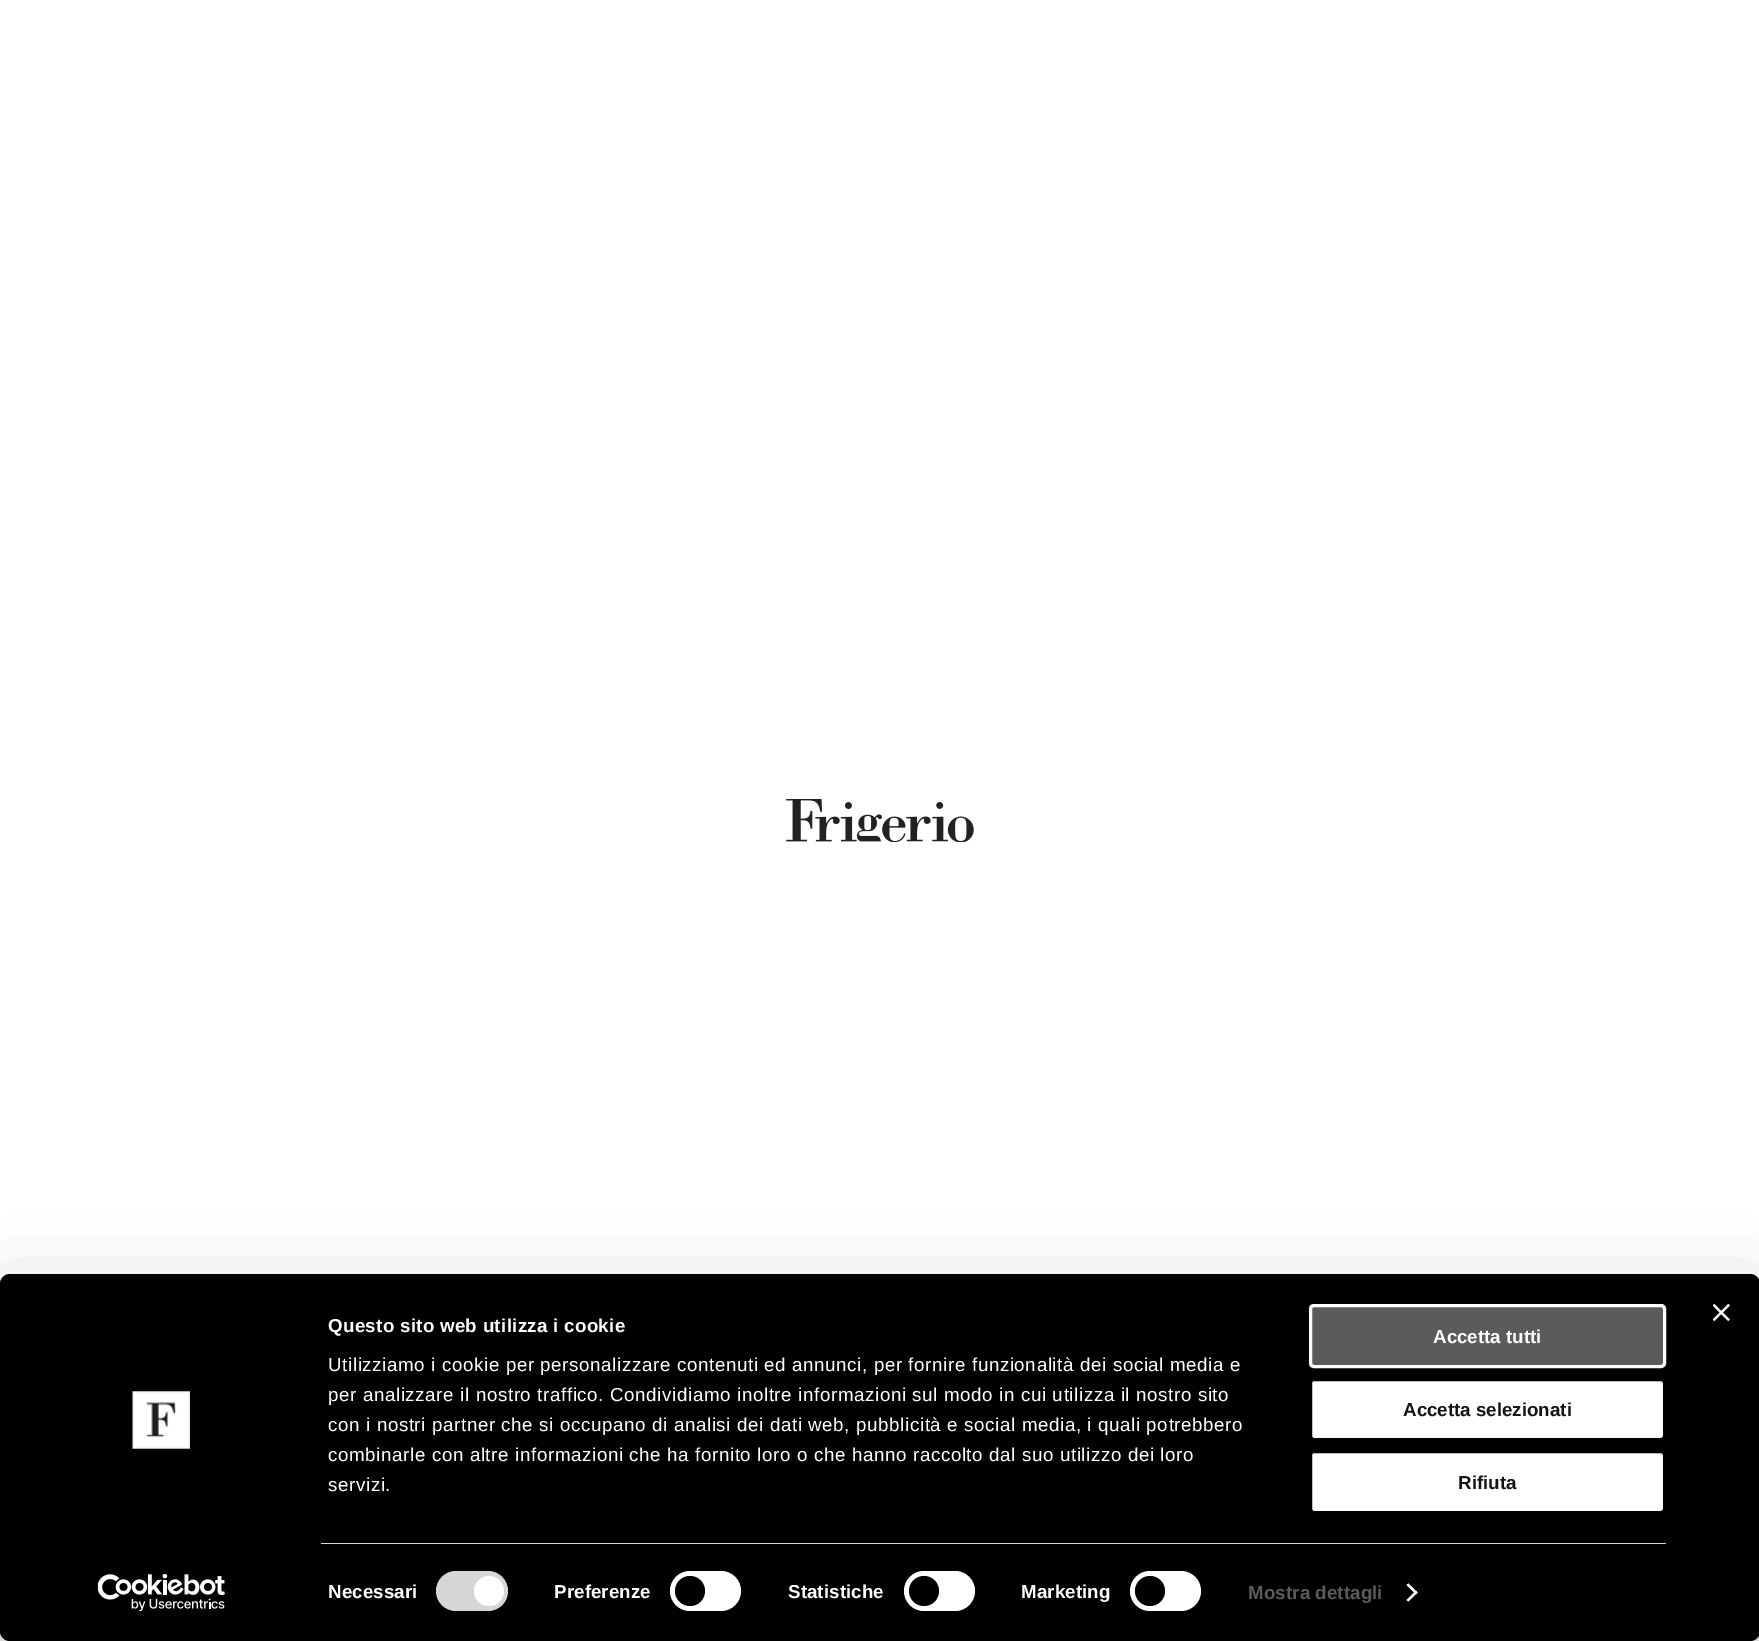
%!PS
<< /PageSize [1759 1641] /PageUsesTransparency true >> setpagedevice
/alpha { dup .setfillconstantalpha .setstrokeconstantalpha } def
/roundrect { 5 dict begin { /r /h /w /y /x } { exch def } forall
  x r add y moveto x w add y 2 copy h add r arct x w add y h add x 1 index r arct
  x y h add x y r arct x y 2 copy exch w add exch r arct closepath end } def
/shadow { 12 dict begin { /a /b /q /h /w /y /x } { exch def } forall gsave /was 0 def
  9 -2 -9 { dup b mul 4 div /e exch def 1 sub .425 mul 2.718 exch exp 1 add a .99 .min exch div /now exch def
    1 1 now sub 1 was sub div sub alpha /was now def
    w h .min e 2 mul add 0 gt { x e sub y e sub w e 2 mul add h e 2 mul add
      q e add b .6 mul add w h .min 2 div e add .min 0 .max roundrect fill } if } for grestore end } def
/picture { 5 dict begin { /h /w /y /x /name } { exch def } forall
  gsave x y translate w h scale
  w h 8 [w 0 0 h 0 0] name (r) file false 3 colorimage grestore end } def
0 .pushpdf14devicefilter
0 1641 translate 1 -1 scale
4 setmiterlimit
1 setgray
0 0 1759 1641 rectfill
(img1.rgb) 786 799 188 43 picture
0 setgray
0 1311 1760 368 10 44 0.3 shadow
0 1274 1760 367 10 roundrect fill
(img2.rgb) 1713 1304 17 17 picture
(img3.rgb) 132 1391 58 58 picture
(img4.rgb) 98 1574 127 37 picture
/LiberationSans-Bold [18.75 0 0 -18.75 0 0] selectfont
1 setgray
328 1332 moveto 0.3 0 (Questo sito web utilizza i cookie) ashow
/LiberationSans-Regular [18.75 0 0 -18.75 0 0] selectfont
328 1371 moveto 0.62 0 (Utilizziamo i cookie per personalizzare contenuti ed annunci, per fornire funzionalità dei social media e) ashow
328 1401 moveto 0.62 0 (per analizzare il nostro traffico. Condividiamo inoltre informazioni sul modo in cui utilizza il nostro sito) ashow
328 1431 moveto 0.62 0 (con i nostri partner che si occupano di analisi dei dati web, pubblicità e social media, i quali potrebbero) ashow
328 1461 moveto 0.62 0 (combinarle con altre informazioni che ha fornito loro o che hanno raccolto dal suo utilizzo dei loro) ashow
328 1491 moveto 0.62 0 (servizi.) ashow
0.839 setgray
321 1543 1345 1 rectfill
/LiberationSans-Bold [18.75 0 0 -18.75 0 0] selectfont
1 setgray
328 1598 moveto 0.1 0 (Necessari) ashow
0.839 setgray
436 1571 72 40 20 roundrect fill
1 setgray
newpath 489 1591 15 0 360 arc closepath fill
554 1598 moveto 0.1 0 (Preferenze) ashow
670 1571 71 40 20 roundrect fill
0 setgray
newpath 690 1591 15 0 360 arc closepath fill
1 setgray
788 1598 moveto 0.1 0 (Statistiche) ashow
904 1571 71 40 20 roundrect fill
0 setgray
newpath 924 1591 15 0 360 arc closepath fill
1 setgray
1021 1598 moveto 0.1 0 (Marketing) ashow
1130 1571 71 40 20 roundrect fill
0 setgray
newpath 1150 1591 15 0 360 arc closepath fill
0.357 setgray
1248 1599 moveto 0.1 0 (Mostra dettagli) ashow
1 setgray
newpath 1408.5 1583.5 moveto 1417.5 1592.5 lineto 1416 1594.5 lineto 1406.5 1585 lineto closepath fill
newpath 1416 1590.5 moveto 1417.5 1592.5 lineto 1408.5 1601.5 lineto 1406.5 1600 lineto closepath fill
0.357 setgray
1310.5 1305.5 354 61 3.5 roundrect gsave fill grestore
1 setgray
3 setlinewidth
stroke
1433 1343 moveto (Accetta tutti) show
1310.5 1379.5 354 60 3.5 roundrect gsave fill grestore
0 setgray
stroke
0.078 setgray
1403 1416 moveto (Accetta selezionati) show
1 setgray
1310.5 1451.5 354 61 3.5 roundrect gsave fill grestore
0 setgray
stroke
0.078 setgray
1458 1489 moveto (Rifiuta) show
.poppdf14devicefilter showpage
